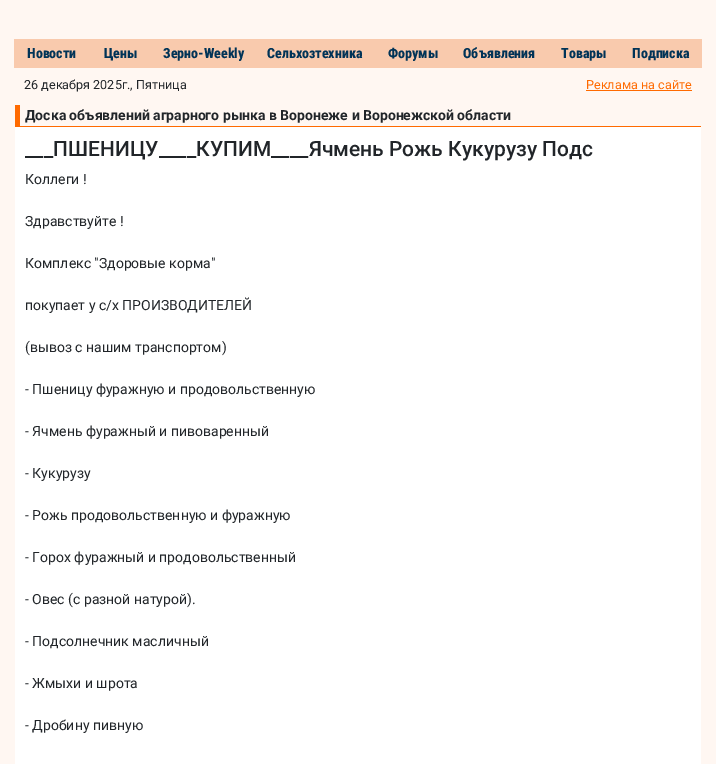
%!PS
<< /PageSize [716 764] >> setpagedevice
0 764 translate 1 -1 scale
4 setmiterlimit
1 0.969 0.949 setrgbcolor
0 0 716 764 rectfill
0.976 0.792 0.678 setrgbcolor
14 39 688 29 rectfill
/RobotoCondensed-ExtraBold [14 0 0 -14 0 0] selectfont
0 0.2 0.341 setrgbcolor
27 58 moveto (Новости) show
104 58 moveto (Цены) show
163 58 moveto (Зерно-Weekly) show
267 58 moveto (Сельхозтехника) show
388 58 moveto (Форумы) show
463 58 moveto (Объявления) show
561 58 moveto (Товары) show
632 58 moveto (Подписка) show
/Roboto-Regular [12.6 0 0 -12.6 0 0] selectfont
0.129 0.145 0.161 setrgbcolor
24 89 moveto (26 декабря 2025г., Пятница) show
1 0.416 0 setrgbcolor
586 89 moveto (Реклама на сайте) show
586 90 106 1 rectfill
15 126 686 1 rectfill
15 105 5 22 rectfill
/Roboto-Bold [14 0 0 -14 0 0] selectfont
0.129 0.145 0.161 setrgbcolor
25 120 moveto (Доска объявлений аграрного рынка в Воронеже и Воронежской области) show
1 setgray
15 127 686 637 rectfill
/Roboto-Medium [21 0 0 -21 0 0] selectfont
0.129 0.145 0.161 setrgbcolor
25 156 moveto (___ПШЕНИЦУ____КУПИМ____Ячмень Рожь Кукурузу Подс) show
/Roboto-Regular [14 0 0 -14 0 0] selectfont
25 184 moveto (Коллеги !) show
25 226 moveto (Здравствуйте !) show
25 268 moveto (Комплекс "Здоровые корма") show
25 310 moveto (покупает у с/х ПРОИЗВОДИТЕЛЕЙ) show
25 352 moveto (\(вывоз с нашим транспортом\)) show
25 394 moveto (- Пшеницу фуражную и продовольственную) show
25 436 moveto (- Ячмень фуражный и пивоваренный) show
25 478 moveto (- Кукурузу) show
25 520 moveto (- Рожь продовольственную и фуражную) show
25 562 moveto (- Горох фуражный и продовольственный) show
25 604 moveto (- Овес \(с разной натурой\).) show
25 646 moveto (- Подсолнечник масличный) show
25 688 moveto (- Жмыхи и шрота) show
25 730 moveto (- Дробину пивную) show
showpage
